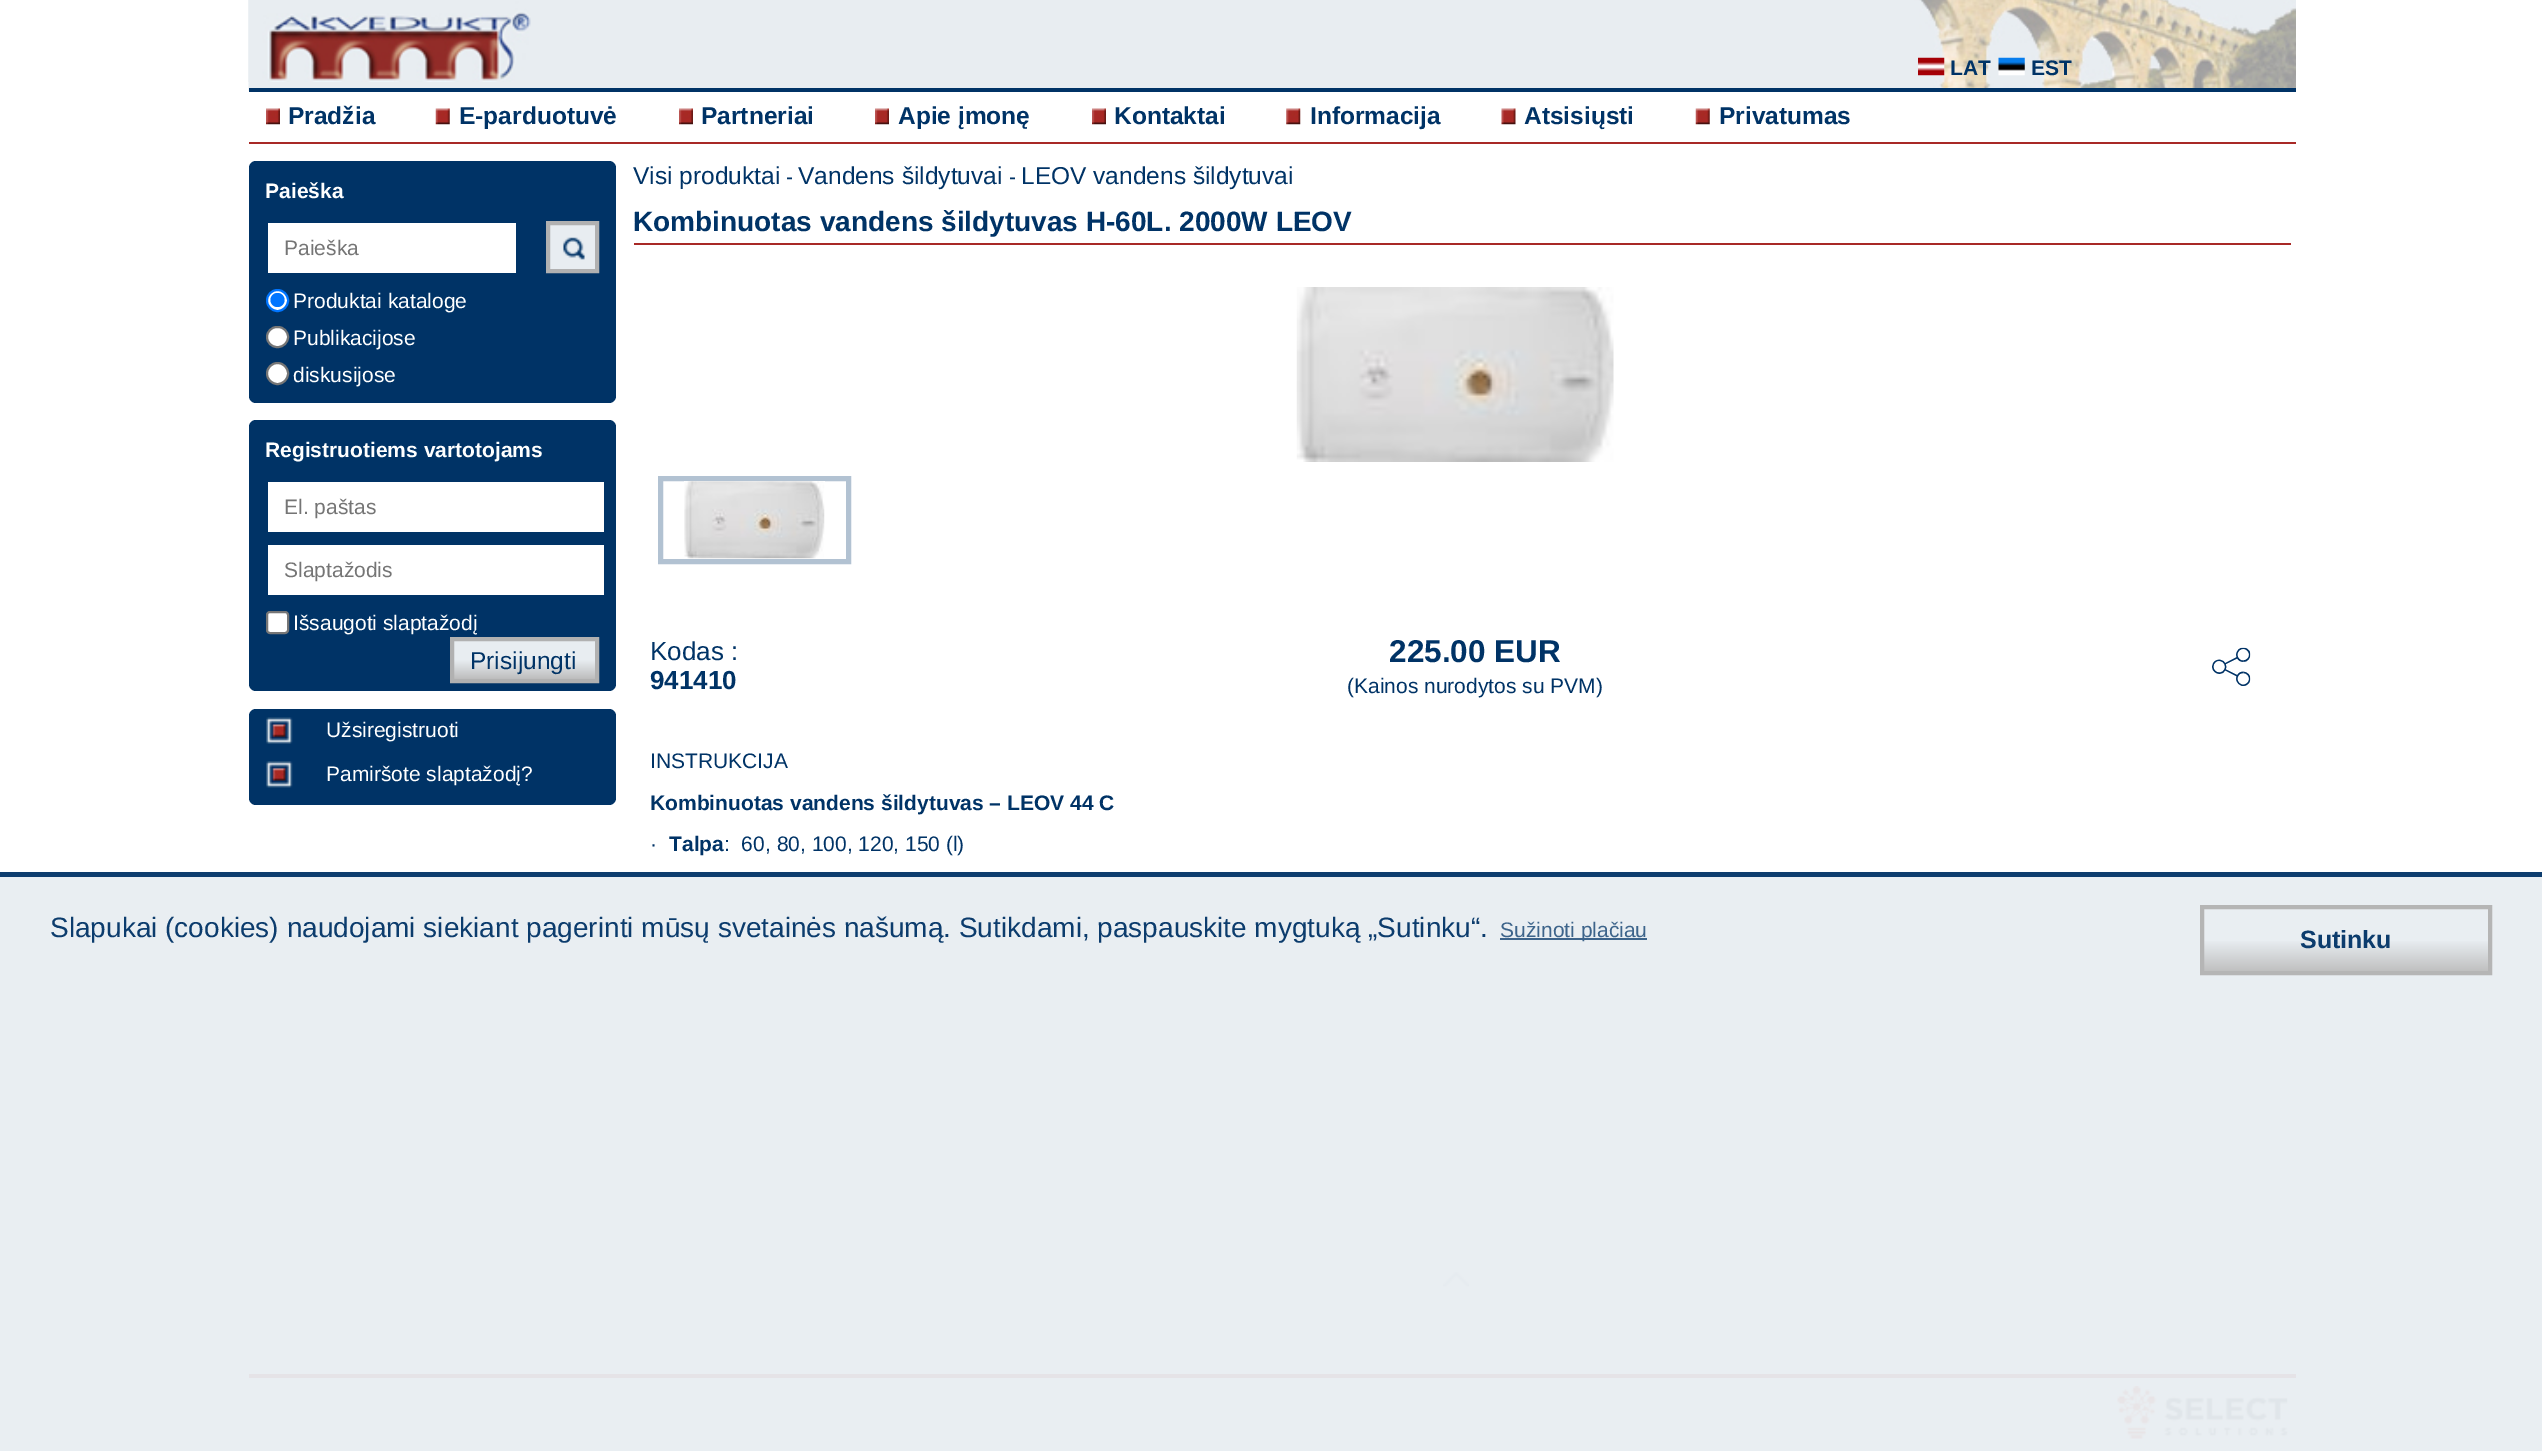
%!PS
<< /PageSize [2542 1451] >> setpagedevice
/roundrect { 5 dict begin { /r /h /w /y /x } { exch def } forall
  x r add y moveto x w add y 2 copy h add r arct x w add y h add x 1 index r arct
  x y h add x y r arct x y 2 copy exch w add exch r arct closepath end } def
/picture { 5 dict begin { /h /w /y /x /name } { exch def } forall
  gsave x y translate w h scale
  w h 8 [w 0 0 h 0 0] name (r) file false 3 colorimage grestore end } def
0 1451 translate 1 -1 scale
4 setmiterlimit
1 setgray
0 0 2542 1451 rectfill
0.914 0.933 0.949 setrgbcolor
0 877 2542 574 rectfill
(img1.rgb) 248 0 2048 91 picture
0 0.2 0.4 setrgbcolor
249 88 2047 4 rectfill
(img2.rgb) 248 0 283 82 picture
(img3.rgb) 1918 57 27 19 picture
/LiberationSans-Bold [21 0 0 -21 0 0] selectfont
1950 75 moveto (LAT) show
(img4.rgb) 1998 57 27 19 picture
2031 75 moveto (EST) show
0.659 0.161 0.149 setrgbcolor
249 142 2047 2 rectfill
(img5.rgb) 266 108 14 17 picture
/LiberationSans-Bold [24.5 0 0 -24.5 0 0] selectfont
0 0.2 0.4 setrgbcolor
288 124 moveto (Pradžia) show
(img6.rgb) 435 108 15 17 picture
459 124 moveto (E-parduotuvė) show
(img7.rgb) 679 108 14 17 picture
701 124 moveto (Partneriai) show
(img8.rgb) 875 108 14 17 picture
898 124 moveto (Apie įmonę) show
(img8.rgb) 1092 108 14 17 picture
1114 124 moveto (Kontaktai) show
(img9.rgb) 1286 108 15 17 picture
1310 124 moveto (Informacija) show
(img10.rgb) 1501 108 15 17 picture
1524 124 moveto (Atsisiųsti) show
(img6.rgb) 1695 108 15 17 picture
1719 124 moveto (Privatumas) show
249 161 367 242 7 roundrect fill
/LiberationSans-Bold [21 0 0 -21 0 0] selectfont
1 setgray
265 198 moveto (Paieška) show
268 223 248 50 rectfill
/LiberationSans-Regular [21 0 0 -21 0 0] selectfont
0.459 setgray
284 255 moveto (Paieška) show
(img11.rgb) 550 225 45 44 picture
0.694 setgray
4 setlinewidth
548 223 49 48 rectstroke
1 setgray
newpath 277.5 300.5 10.5 0 360 arc closepath gsave fill grestore
0 0.459 1 setrgbcolor
2 setlinewidth
stroke
newpath 277.5 300 7 0 360 arc closepath fill
1 setgray
293 308 moveto (Produktai kataloge) show
267 327 21 20 10 roundrect gsave fill grestore
0.463 setgray
stroke
1 setgray
293 345 moveto (Publikacijose) show
newpath 277.5 373.5 10.5 0 360 arc closepath gsave fill grestore
0.463 setgray
stroke
1 setgray
293 382 moveto (diskusijose) show
0 0.2 0.4 setrgbcolor
249 420 367 271 7 roundrect fill
/LiberationSans-Bold [21 0 0 -21 0 0] selectfont
1 setgray
265 457 moveto (Registruotiems vartotojams) show
268 482 336 50 rectfill
/LiberationSans-Regular [21 0 0 -21 0 0] selectfont
0.459 setgray
284 514 moveto (El. paštas) show
1 setgray
268 545 336 50 rectfill
0.459 setgray
284 577 moveto (Slaptažodis) show
1 setgray
267 612 21 21 3 roundrect gsave fill grestore
0.463 setgray
stroke
1 setgray
293 630 moveto (Išsaugoti slaptažodį) show
gsave newpath 454 641 moveto 595 641 lineto 595 679 lineto 454 679 lineto closepath clip newpath
<< /ShadingType 2 /ColorSpace /DeviceRGB /Coords [524 641 524 679] /Extend [true true] /Function << /FunctionType 3 /Domain [0 1] /Functions [<< /FunctionType 2 /Domain [0 1] /C0 [0.91 0.929 0.945] /C1 [0.91 0.929 0.945] /N 1 >> << /FunctionType 2 /Domain [0 1] /C0 [0.91 0.929 0.945] /C1 [0.741 0.741 0.741] /N 1 >>] /Bounds [0.5] /Encode [0 1 0 1] >> >> shfill grestore
0.694 setgray
4 setlinewidth
452 639 145 42 rectstroke
/LiberationSans-Regular [24.5 0 0 -24.5 0 0] selectfont
0 0.2 0.4 setrgbcolor
470 669 moveto (Prisijungti) show
249 709 367 96 7 roundrect fill
(img12.rgb) 266 717 27 27 picture
/LiberationSans-Regular [21 0 0 -21 0 0] selectfont
1 setgray
326 737 moveto (Užsiregistruoti) show
(img13.rgb) 266 761 27 27 picture
326 781 moveto (Pamiršote slaptažodį?) show
/LiberationSans-Regular [24.5 0 0 -24.5 0 0] selectfont
0 0.2 0.4 setrgbcolor
633 184 moveto (Visi produktai) show
/LiberationSans-Regular [21 0 0 -21 0 0] selectfont
786 184 moveto (-) show
/LiberationSans-Regular [24.5 0 0 -24.5 0 0] selectfont
798 184 moveto (Vandens šildytuvai) show
/LiberationSans-Regular [21 0 0 -21 0 0] selectfont
1009 184 moveto (-) show
/LiberationSans-Regular [24.5 0 0 -24.5 0 0] selectfont
1021 184 moveto (LEOV vandens šildytuvai) show
0.659 0.161 0.149 setrgbcolor
634 243 1657 2 rectfill
/LiberationSans-Bold [28 0 0 -28 0 0] selectfont
0 0.2 0.4 setrgbcolor
633 231 moveto (Kombinuotas vandens šildytuvas H-60L. 2000W LEOV) show
(img14.rgb) 1296 287 318 175 picture
0.698 0.761 0.824 setrgbcolor
5 setlinewidth
660.5 478.5 188 83 rectstroke
(img15.rgb) 684 481 141 78 picture
/LiberationSans-Regular [26 0 0 -26 0 0] selectfont
0 0.2 0.4 setrgbcolor
650 660 moveto (Kodas :) show
/LiberationSans-Bold [26 0 0 -26 0 0] selectfont
650 689 moveto (941410) show
/LiberationSans-Bold [31.5 0 0 -31.5 0 0] selectfont
1389 662 moveto (225.00 EUR) show
/LiberationSans-Regular [21 0 0 -21 0 0] selectfont
1347 693 moveto (\(Kainos nurodytos su PVM\)) show
(img16.rgb) 2212 647 39 39 picture
650 768 moveto (INSTRUKCIJA) show
/LiberationSans-Bold [21 0 0 -21 0 0] selectfont
650 810 moveto (Kombinuotas vandens šildytuvas – LEOV 44 C) show
/LiberationSans-Regular [21 0 0 -21 0 0] selectfont
650 851 moveto (·) show
/LiberationSans-Bold [21 0 0 -21 0 0] selectfont
669 851 moveto (Talpa) show
/LiberationSans-Regular [21 0 0 -21 0 0] selectfont
724 851 moveto (:  60, 80, 100, 120, 150 \(l\)) show
(img17.rgb) 1442 1272 28 15 picture
0.051 0.239 0.431 setrgbcolor
0 872 2542 5 rectfill
/LiberationSans-Regular [28 0 0 -28 0 0] selectfont
0.047 0.235 0.427 setrgbcolor
50 937 moveto (Slapukai \(cookies\) naudojami siekiant pagerinti mūsų svetainės našumą. Sutikdami, paspauskite mygtuką „Sutinku“.) show
0.239 0.392 0.545 setrgbcolor
1500 938 147 2 rectfill
/LiberationSans-Regular [21 0 0 -21 0 0] selectfont
1500 937 moveto (Sužinoti plačiau) show
gsave newpath 2204 941 moveto 2488 941 lineto 2488 971 lineto 2204 971 lineto closepath clip newpath
<< /ShadingType 2 /ColorSpace /DeviceRGB /Coords [2346 908 2346 971] /Extend [true true] /Function << /FunctionType 3 /Domain [0 1] /Functions [<< /FunctionType 2 /Domain [0 1] /C0 [0.914 0.933 0.949] /C1 [0.914 0.933 0.949] /N 1 >> << /FunctionType 2 /Domain [0 1] /C0 [0.914 0.933 0.949] /C1 [0.753 0.753 0.753] /N 1 >>] /Bounds [0.5] /Encode [0 1 0 1] >> >> shfill grestore
0.71 setgray
4 setlinewidth
2202 907 288 66 rectstroke
/LiberationSans-Bold [25 0 0 -25 0 0] selectfont
0.047 0.235 0.427 setrgbcolor
2300 948 moveto (Sutinku) show
0.898 0.89 0.906 setrgbcolor
249 1374 2047 4 rectfill
(img18.rgb) 2117 1386 171 53 picture
showpage
